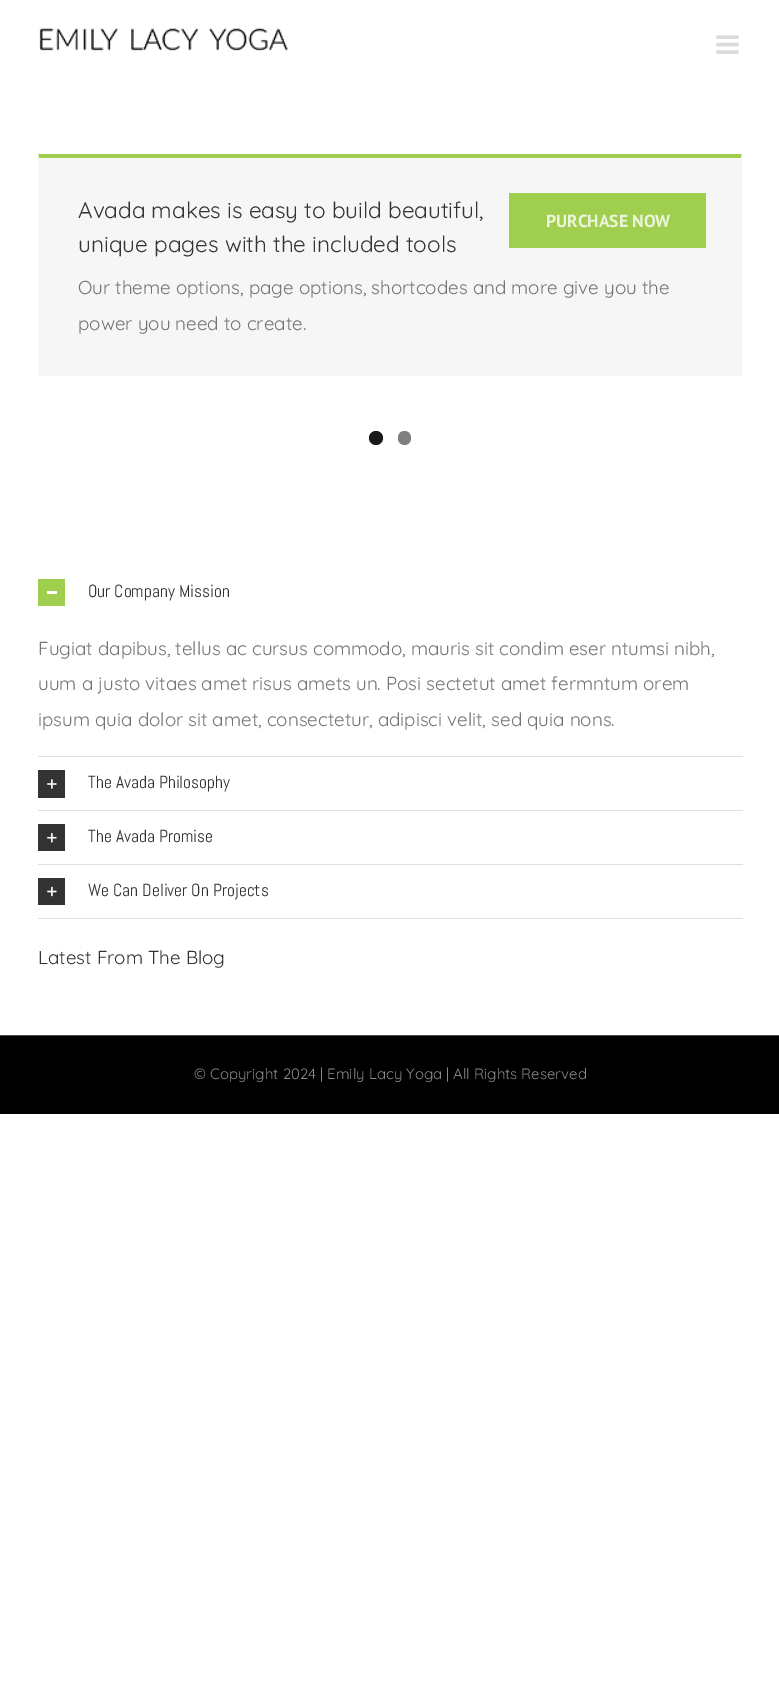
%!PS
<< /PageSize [779 1706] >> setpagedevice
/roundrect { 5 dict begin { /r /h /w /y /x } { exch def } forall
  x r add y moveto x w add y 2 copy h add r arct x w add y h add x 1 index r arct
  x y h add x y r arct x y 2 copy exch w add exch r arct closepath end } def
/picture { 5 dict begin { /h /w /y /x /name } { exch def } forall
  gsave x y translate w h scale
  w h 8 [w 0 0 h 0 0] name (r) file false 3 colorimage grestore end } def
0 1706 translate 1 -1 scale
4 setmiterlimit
1 setgray
0 0 779 1706 rectfill
(img1.rgb) 39 28 249 23 picture
(img2.rgb) 716 35 23 19 picture
0.965 setgray
39 158 702 217 rectfill
0.627 0.808 0.306 setrgbcolor
newpath 38 154 moveto 742 154 lineto 741 158 lineto 39 158 lineto closepath fill
0.965 setgray
newpath 742 154 moveto 742 376 lineto 741 375 lineto 741 158 lineto closepath fill
38 375 705 1 rectfill
newpath 38 376 moveto 38 154 lineto 39 158 lineto 39 375 lineto closepath fill
/Quicksand-Regular [22.5 0 0 -22.5 0 0] selectfont
0.2 setgray
78 218 moveto (Avada makes is easy to build beautiful,) show
78 252 moveto (unique pages with the included tools) show
0.627 0.808 0.306 setrgbcolor
509 193 197 55 rectfill
/PTSans-Bold [17.5 0 0 -17.5 0 0] selectfont
0.925 0.961 0.863 setrgbcolor
546 227 moveto (PURCHASE NOW) show
/Quicksand-Regular [18.75 0 0 -18.75 0 0] selectfont
0.455 setgray
78 294 moveto (Our theme options, page options, shortcodes and more give you the) show
78 330 moveto (power you need to create.) show
0.102 setgray
newpath 376 438 7 0 360 arc closepath fill
0.502 setgray
398 431 13 14 6.5 roundrect fill
0.878 0.871 0.871 setrgbcolor
38 756 705 1 rectfill
0.627 0.808 0.306 setrgbcolor
38 579 27 27 rectfill
1 setgray
47 591 10 3 rectfill
/Abel-Regular [17.5 0 0 -17.5 0 0] selectfont
0.2 setgray
88 597 moveto (Our Company Mission) show
/Quicksand-Regular [18.75 0 0 -18.75 0 0] selectfont
0.455 setgray
38 655 moveto (Fugiat dapibus, tellus ac cursus commodo, mauris sit condim eser ntumsi nibh,) show
38 690 moveto (uum a justo vitaes amet risus amets un. Posi sectetut amet fermntum orem) show
38 726 moveto (ipsum quia dolor sit amet, consectetur, adipisci velit, sed quia nons.) show
0.878 0.871 0.871 setrgbcolor
38 810 705 1 rectfill
0.2 setgray
38 770 27 28 rectfill
(img3.rgb) 47 779 10 10 picture
/Abel-Regular [17.5 0 0 -17.5 0 0] selectfont
88 788 moveto (The Avada Philosophy) show
0.878 0.871 0.871 setrgbcolor
38 864 705 1 rectfill
0.2 setgray
38 824 27 27 rectfill
(img4.rgb) 47 833 10 10 picture
88 842 moveto (The Avada Promise) show
0.878 0.871 0.871 setrgbcolor
38 918 705 1 rectfill
0.2 setgray
38 878 27 27 rectfill
(img5.rgb) 47 886 10 11 picture
88 896 moveto (We Can Deliver On Projects) show
/Quicksand-Regular [18.75 0 0 -18.75 0 0] selectfont
38 964 moveto (Latest From The Blog) show
0 setgray
0 1036 779 78 rectfill
0.294 0.298 0.302 setrgbcolor
0 1035 779 1 rectfill
/Quicksand-Regular [15 0 0 -15 0 0] selectfont
0.549 0.537 0.537 setrgbcolor
194 1079 moveto (© Copyright 2024 | Emily Lacy Yoga | All Rights Reserved) show
showpage
